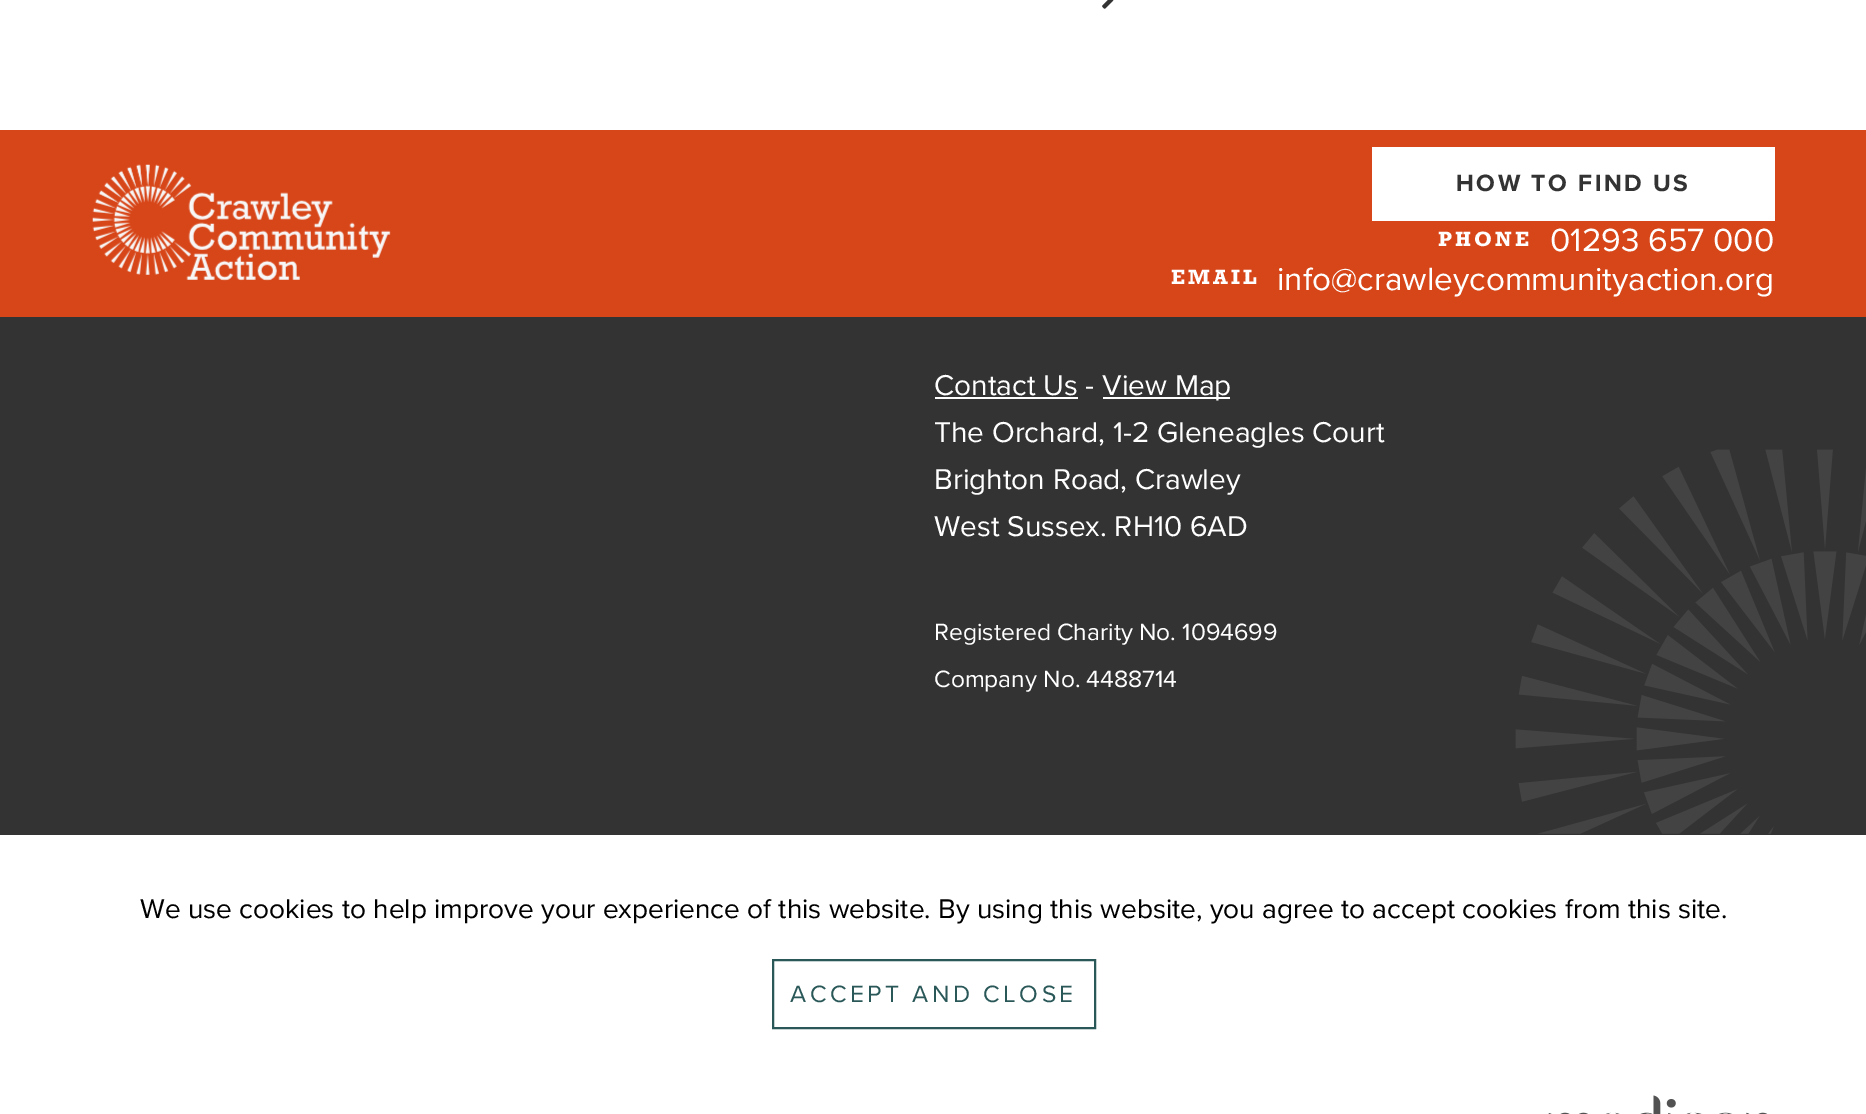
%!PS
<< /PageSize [1866 1114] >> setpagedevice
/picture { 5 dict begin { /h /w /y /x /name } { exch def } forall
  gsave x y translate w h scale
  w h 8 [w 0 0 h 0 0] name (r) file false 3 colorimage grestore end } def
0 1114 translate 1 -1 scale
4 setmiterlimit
1 setgray
0 0 1866 1114 rectfill
(img1.rgb) 1102 0 12 9 picture
0.843 0.275 0.098 setrgbcolor
0 130 1866 187 rectfill
(img2.rgb) 92 164 299 117 picture
1 setgray
1372 147 403 74 rectfill
/ProximaNova-Bold [24.5 0 0 -24.5 0 0] selectfont
0.2 setgray
1456 191 moveto 2.5 0 (HOW TO FIND US) ashow
/Rockwell-Bold [21 0 0 -21 0 0] selectfont
1 setgray
1438 246 moveto 3 0 (PHONE) ashow
/ProximaNova-Regular [33.25 0 0 -33.25 0 0] selectfont
1550 251 moveto (01293 657 000) show
/Rockwell-Bold [21 0 0 -21 0 0] selectfont
1171 284 moveto 3 0 (EMAIL) ashow
/ProximaNova-Regular [33.25 0 0 -33.25 0 0] selectfont
1277 290 moveto (info@crawleycommunityaction.org) show
0.2 setgray
0 317 1866 518 rectfill
(img3.rgb) 1515 449 351 385 picture
/ProximaNova-Regular [29.75 0 0 -29.75 0 0] selectfont
1 setgray
934 395 moveto (Contact Us -) show
935 397 143 2 rectfill
1103 397 127 2 rectfill
1102 395 moveto (View Map) show
934 442 moveto (The Orchard, 1-2 Gleneagles Court) show
934 489 moveto (Brighton Road, Crawley) show
934 536 moveto (West Sussex. RH10 6AD) show
/ProximaNova-Regular [24.5 0 0 -24.5 0 0] selectfont
934 640 moveto (Registered Charity No. 1094699) show
934 687 moveto (Company No. 4488714) show
/ProximaNova-Regular [28 0 0 -28 0 0] selectfont
0 setgray
140 918 moveto (We use cookies to help improve your experience of this website. By using this website, you agree to accept cookies from this site.) show
0.165 0.345 0.345 setrgbcolor
2 setlinewidth
773 960 322 68 rectstroke
/ProximaNova-Regular [24.5 0 0 -24.5 0 0] selectfont
790 1002 moveto 3.5 0 (ACCEPT AND CLOSE) ashow
(img4.rgb) 1548 1095 220 19 picture
showpage
